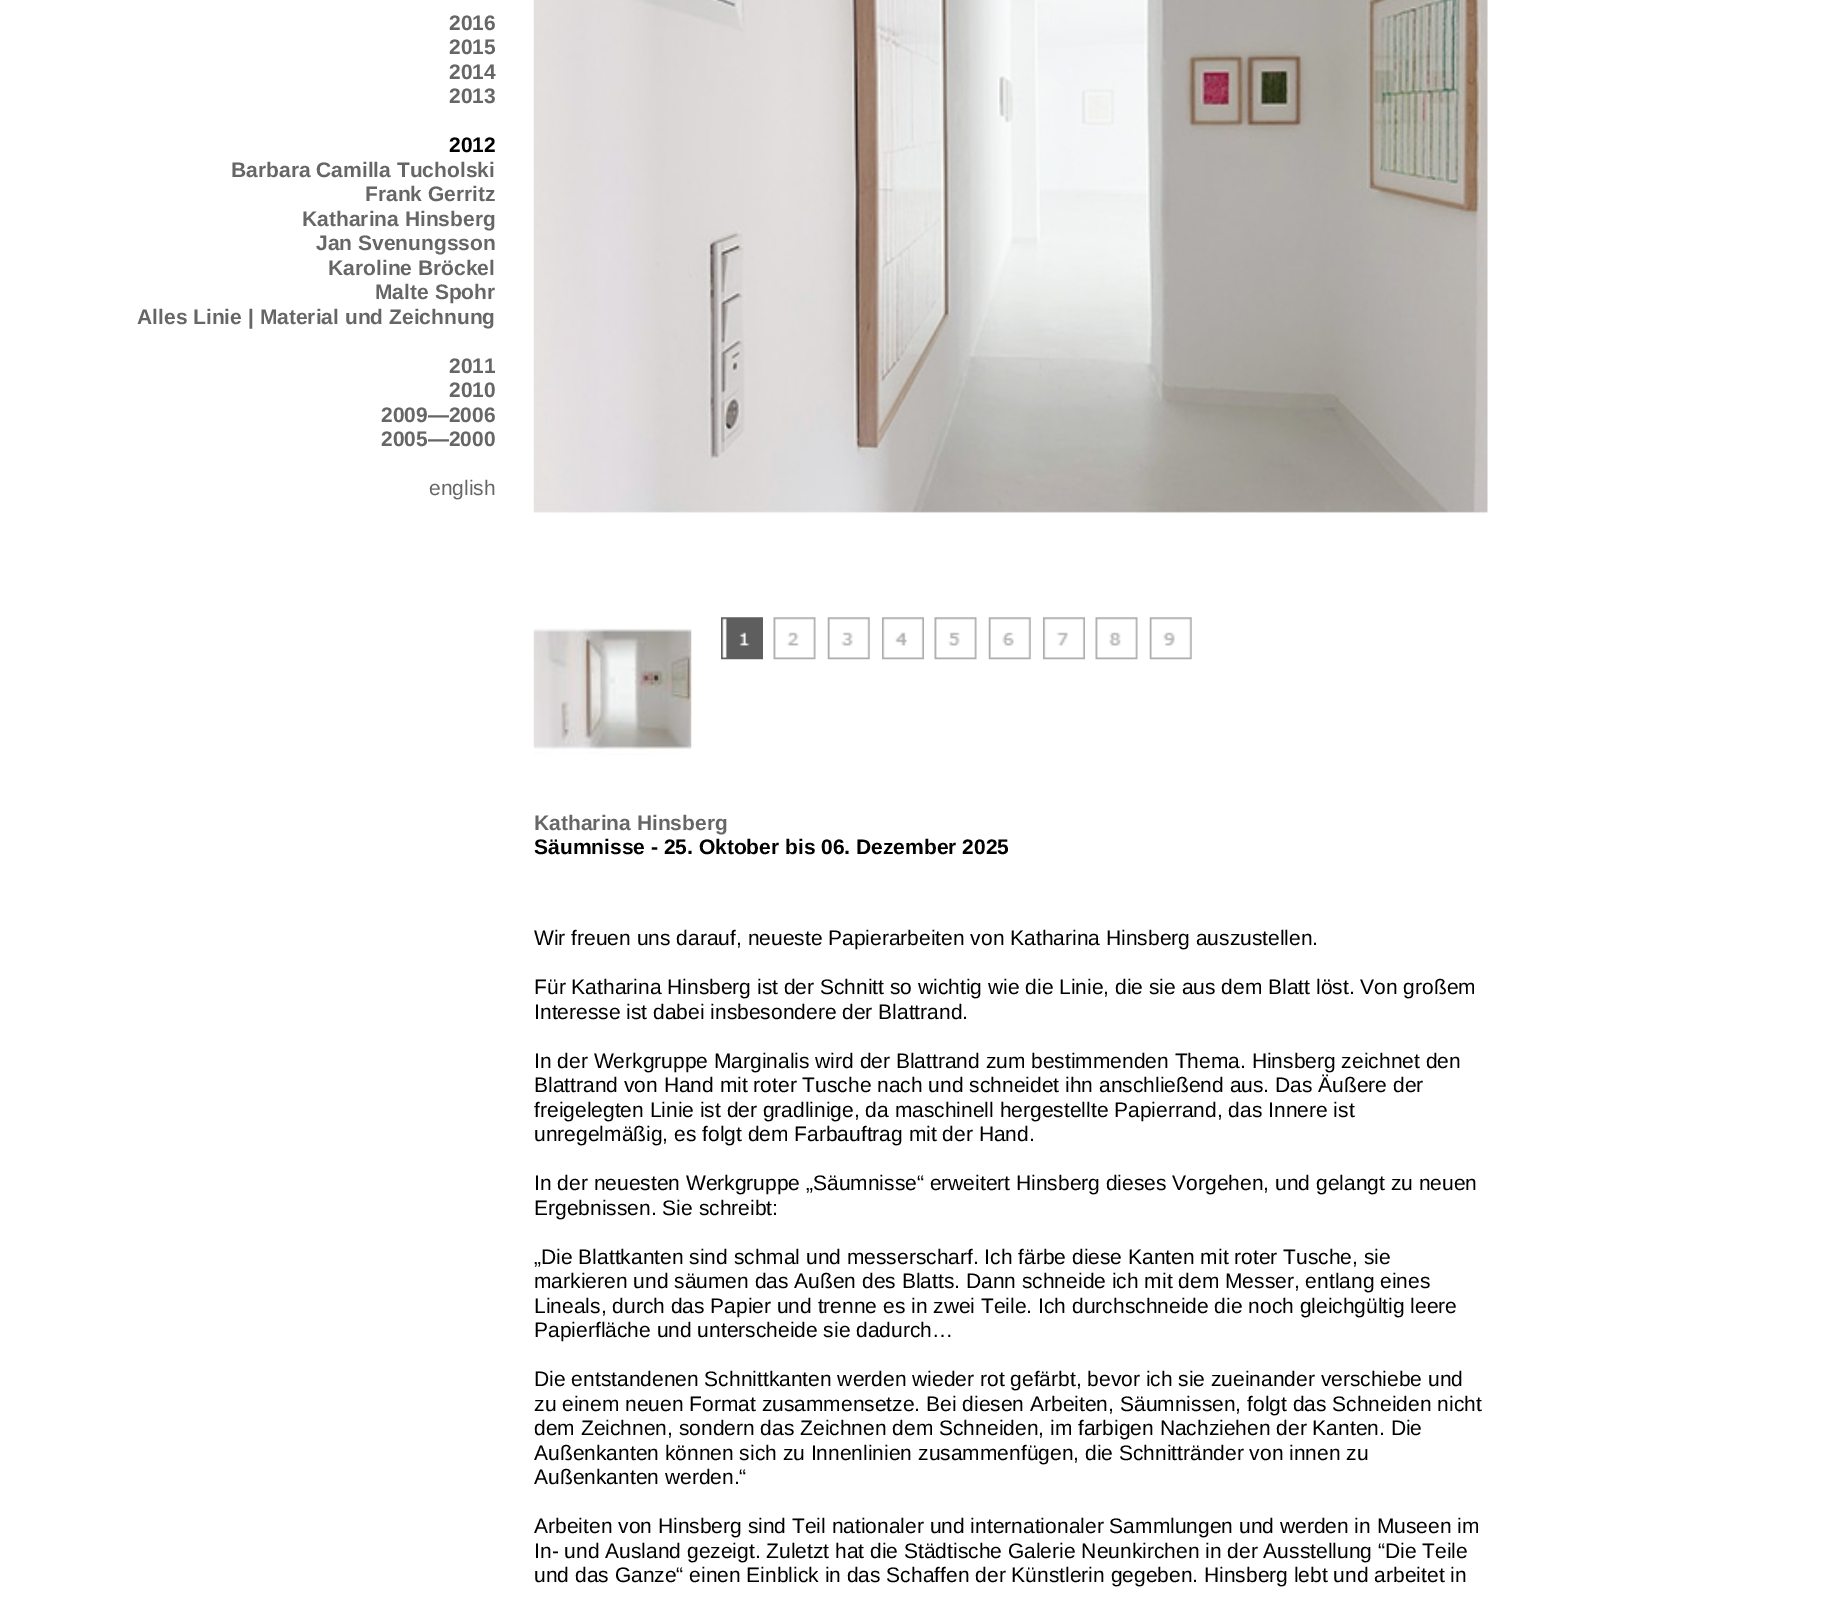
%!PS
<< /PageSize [1822 1597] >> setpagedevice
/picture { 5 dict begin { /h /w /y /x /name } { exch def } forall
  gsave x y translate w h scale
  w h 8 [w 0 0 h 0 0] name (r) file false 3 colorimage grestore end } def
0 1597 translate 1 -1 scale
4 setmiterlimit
1 setgray
0 0 1822 1597 rectfill
/LiberationSans-Bold [21 0 0 -21 0 0] selectfont
0.4 setgray
449 30 moveto (2016) show
449 54 moveto (2015) show
449 79 moveto (2014) show
449 103 moveto (2013) show
0 setgray
449 152 moveto (2012) show
0.4 setgray
231 177 moveto (Barbara Camilla Tucholski) show
365 201 moveto (Frank Gerritz) show
302 226 moveto (Katharina Hinsberg) show
316 250 moveto (Jan Svenungsson) show
328 275 moveto (Karoline Bröckel) show
375 299 moveto (Malte Spohr) show
137 324 moveto (Alles Linie | Material und Zeichnung) show
449 373 moveto (2011) show
449 397 moveto (2010) show
381 422 moveto (2009—2006) show
381 446 moveto (2005—2000) show
/LiberationSans-Regular [21 0 0 -21 0 0] selectfont
429 495 moveto (english) show
(img1.rgb) 533 0 955 514 picture
(img2.rgb) 533 628 159 127 picture
(img3.rgb) 721 617 42 43 picture
(img4.rgb) 773 617 43 43 picture
(img5.rgb) 827 617 43 43 picture
(img6.rgb) 882 617 42 43 picture
(img7.rgb) 934 617 43 43 picture
(img8.rgb) 988 617 43 43 picture
(img9.rgb) 1043 617 42 43 picture
(img10.rgb) 1095 617 43 43 picture
(img11.rgb) 1149 617 43 43 picture
/LiberationSans-Bold [21 0 0 -21 0 0] selectfont
534 830 moveto (Katharina Hinsberg) show
0 setgray
534 854 moveto (Säumnisse - 25. Oktober bis 06. Dezember 2025) show
/LiberationSans-Regular [21 0 0 -21 0 0] selectfont
534 945 moveto (Wir freuen uns darauf, neueste Papierarbeiten von Katharina Hinsberg auszustellen.) show
534 994 moveto (Für Katharina Hinsberg ist der Schnitt so wichtig wie die Linie, die sie aus dem Blatt löst. Von großem) show
534 1019 moveto (Interesse ist dabei insbesondere der Blattrand.) show
534 1068 moveto (In der Werkgruppe Marginalis wird der Blattrand zum bestimmenden Thema. Hinsberg zeichnet den) show
534 1092 moveto (Blattrand von Hand mit roter Tusche nach und schneidet ihn anschließend aus. Das Äußere der) show
534 1117 moveto (freigelegten Linie ist der gradlinige, da maschinell hergestellte Papierrand, das Innere ist) show
534 1141 moveto (unregelmäßig, es folgt dem Farbauftrag mit der Hand.) show
534 1190 moveto (In der neuesten Werkgruppe „Säumnisse“ erweitert Hinsberg dieses Vorgehen, und gelangt zu neuen) show
534 1215 moveto (Ergebnissen. Sie schreibt:) show
534 1264 moveto („Die Blattkanten sind schmal und messerscharf. Ich färbe diese Kanten mit roter Tusche, sie) show
534 1288 moveto (markieren und säumen das Außen des Blatts. Dann schneide ich mit dem Messer, entlang eines) show
534 1313 moveto (Lineals, durch das Papier und trenne es in zwei Teile. Ich durchschneide die noch gleichgültig leere) show
534 1337 moveto (Papierfläche und unterscheide sie dadurch…) show
534 1386 moveto (Die entstandenen Schnittkanten werden wieder rot gefärbt, bevor ich sie zueinander verschiebe und) show
534 1411 moveto (zu einem neuen Format zusammensetze. Bei diesen Arbeiten, Säumnissen, folgt das Schneiden nicht) show
534 1435 moveto (dem Zeichnen, sondern das Zeichnen dem Schneiden, im farbigen Nachziehen der Kanten. Die) show
534 1460 moveto (Außenkanten können sich zu Innenlinien zusammenfügen, die Schnittränder von innen zu) show
534 1484 moveto (Außenkanten werden.“) show
534 1533 moveto (Arbeiten von Hinsberg sind Teil nationaler und internationaler Sammlungen und werden in Museen im) show
534 1558 moveto (In- und Ausland gezeigt. Zuletzt hat die Städtische Galerie Neunkirchen in der Ausstellung “Die Teile) show
534 1582 moveto (und das Ganze“ einen Einblick in das Schaffen der Künstlerin gegeben. Hinsberg lebt und arbeitet in) show
showpage
